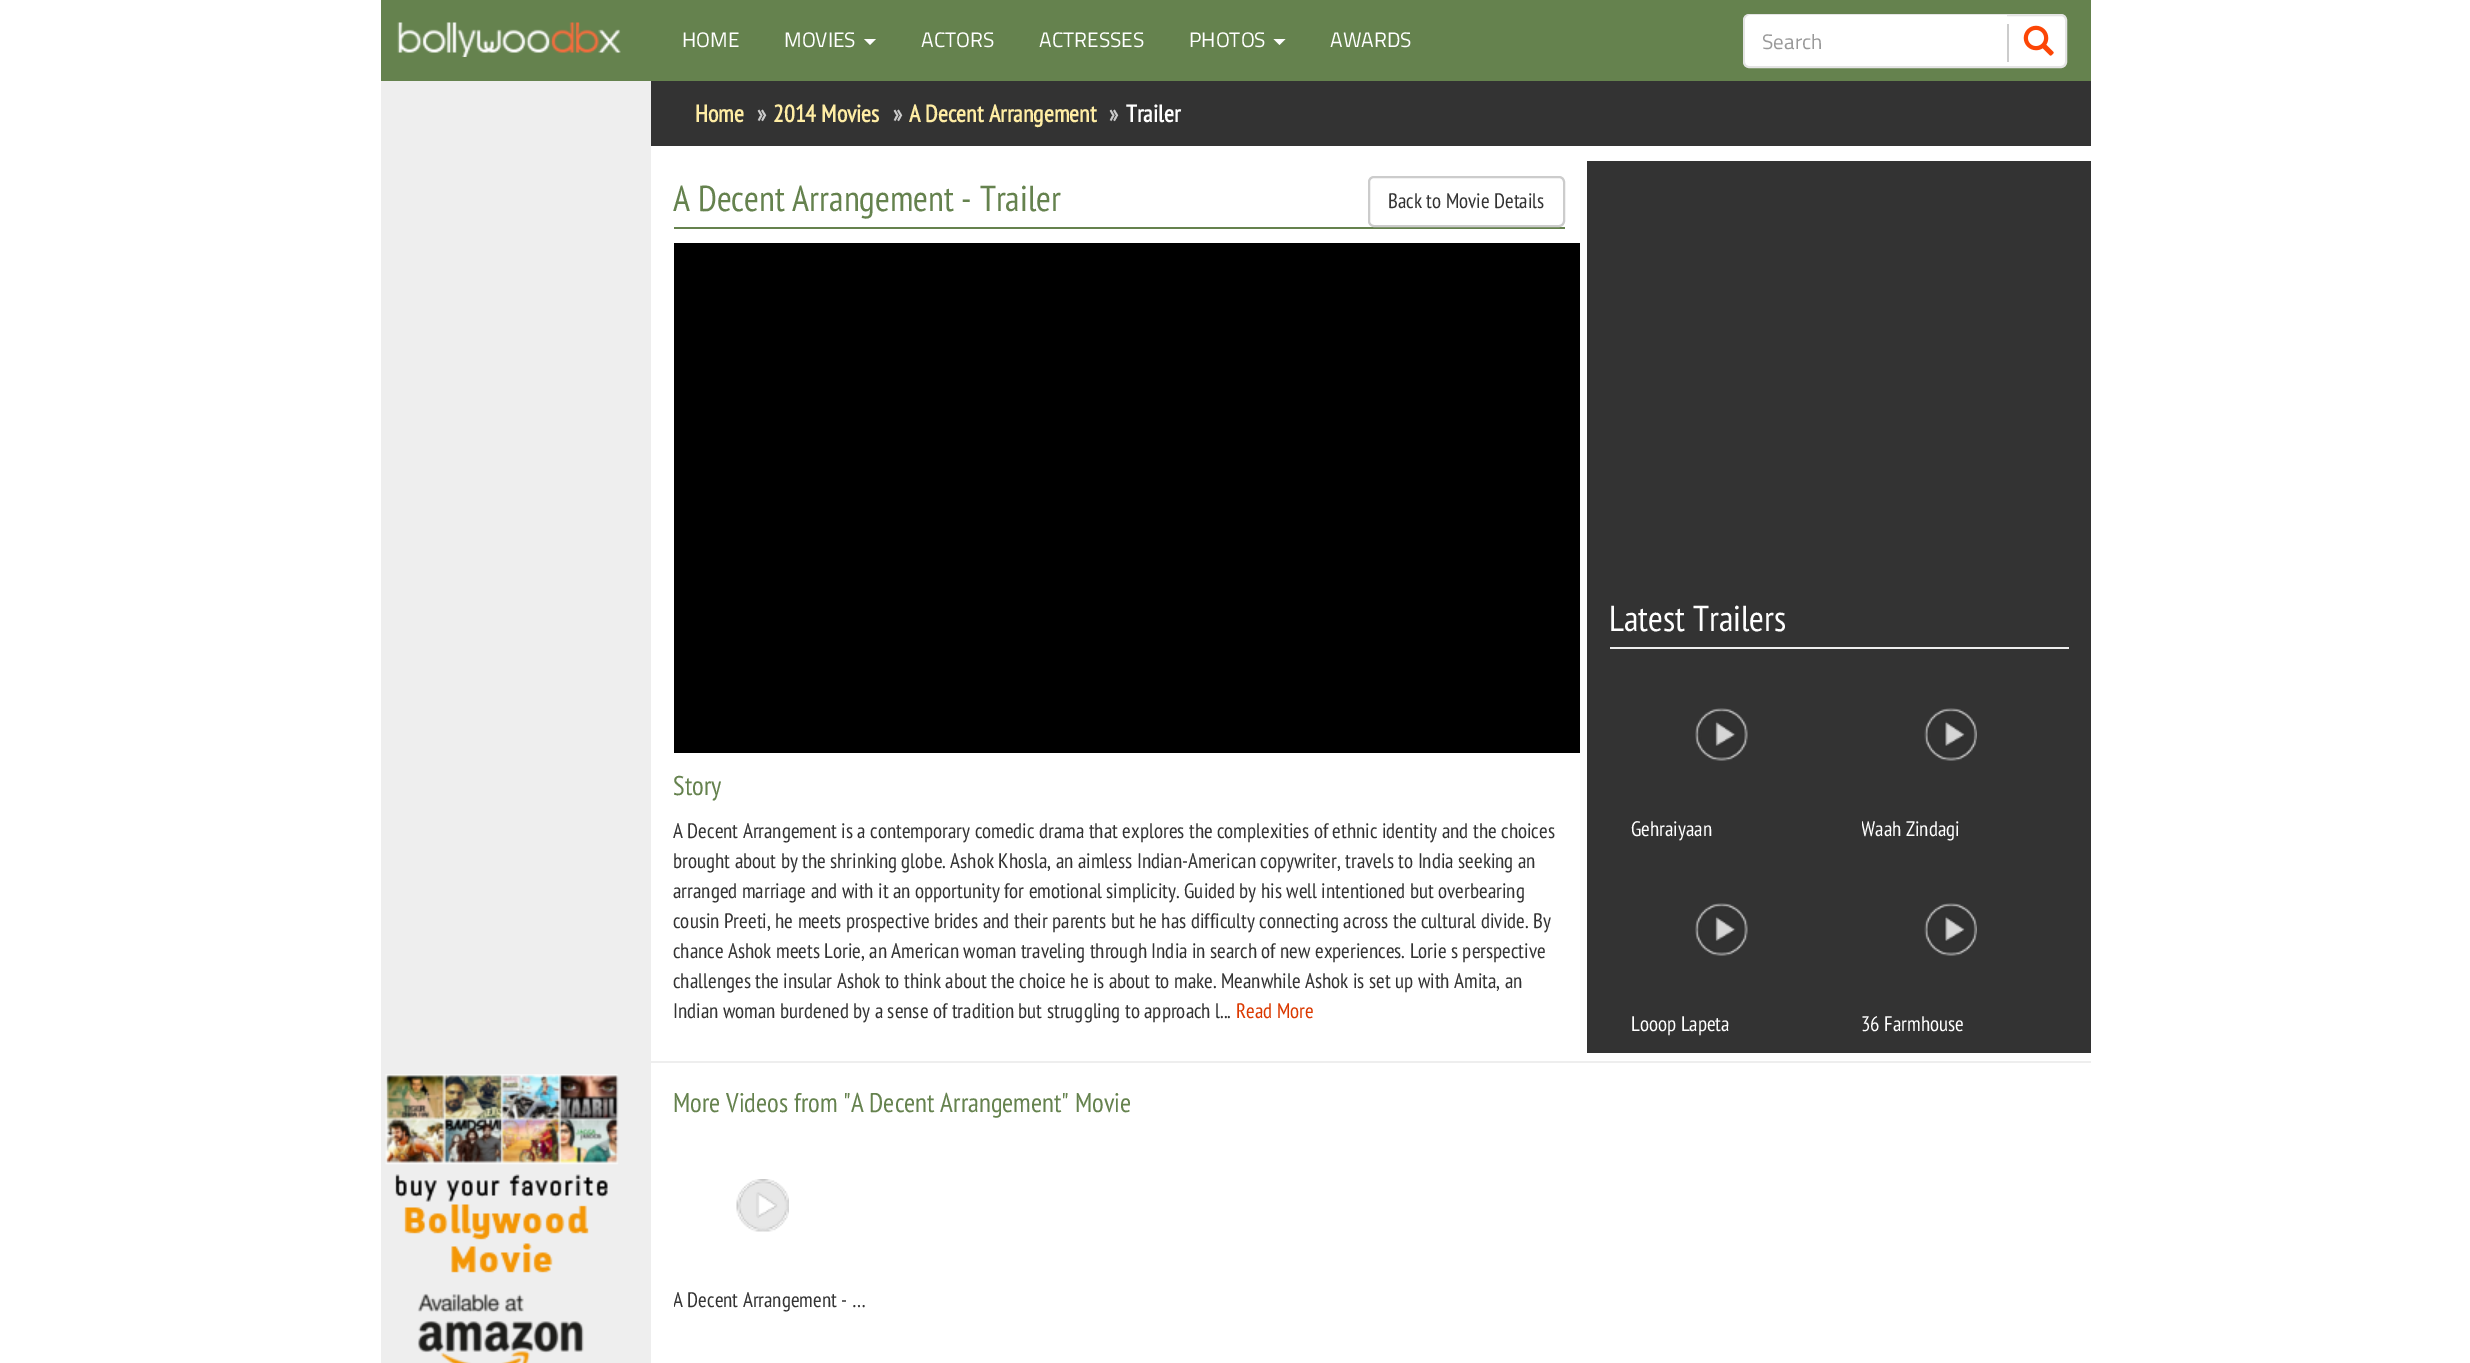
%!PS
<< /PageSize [2470 1363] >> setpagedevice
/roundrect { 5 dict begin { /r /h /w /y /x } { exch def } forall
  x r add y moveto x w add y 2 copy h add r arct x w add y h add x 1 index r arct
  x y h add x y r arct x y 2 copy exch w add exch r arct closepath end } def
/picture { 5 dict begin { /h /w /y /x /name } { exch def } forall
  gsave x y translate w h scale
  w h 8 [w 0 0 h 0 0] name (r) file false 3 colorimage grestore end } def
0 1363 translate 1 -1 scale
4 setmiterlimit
1 setgray
0 0 2470 1363 rectfill
0.396 0.51 0.306 setrgbcolor
381 0 1710 81 rectfill
(img1.rgb) 397 22 224 35 picture
/TitilliumWeb-Regular [21 0 0 -21 0 0] selectfont
1 setgray
682 47 moveto (HOME) show
784 47 moveto (MOVIES) show
newpath 864 39 moveto 876 39 lineto 870 45 lineto closepath fill
921 47 moveto (ACTORS) show
1039 47 moveto (ACTRESSES) show
1189 47 moveto (PHOTOS) show
newpath 1273.5 39 moveto 1285.5 39 lineto 1279.5 45 lineto closepath fill
1330 47 moveto (AWARDS) show
1744 15 322 52 5 roundrect gsave fill grestore
0.894 setgray
2 setlinewidth
stroke
1 setgray
newpath 1751 15 moveto 2007 15 lineto 2007 66 lineto 1751 66 lineto 1747.5 66 1745 63.5 1745 60 curveto 1745 21 lineto 1745 17.5 1747.5 15 1751 15 curveto closepath fill
0.6 setgray
1762 49 moveto (Search) show
0.8 setgray
2007 24 2 38 rectfill
(img2.rgb) 2023 25 31 31 picture
0.933 setgray
381 81 270 1282 rectfill
(img3.rgb) 385 1074 234 289 picture
0.2 setgray
651 81 1440 65 rectfill
/PTSansNarrow-Bold [24 0 0 -24 0 0] selectfont
1 0.929 0.643 setrgbcolor
695 122 moveto (Home) show
0.8 setgray
757 122 moveto (») show
1 0.929 0.643 setrgbcolor
773 122 moveto (2014 Movies) show
0.8 setgray
893 122 moveto (») show
1 0.929 0.643 setrgbcolor
909 122 moveto (A Decent Arrangement) show
0.8 setgray
1109 122 moveto (») show
1 setgray
1126 122 moveto (Trailer) show
0.396 0.51 0.306 setrgbcolor
674 227 891 2 rectfill
/PTSansNarrow-Regular [36 0 0 -36 0 0] selectfont
673 211 moveto (A Decent Arrangement - Trailer) show
0.8 setgray
1369 177 195 49 5 roundrect stroke
/PTSansNarrow-Regular [21 0 0 -21 0 0] selectfont
0.2 setgray
1388 208 moveto (Back to Movie Details) show
0 setgray
674 243 906 510 rectfill
/PTSansNarrow-Regular [27 0 0 -27 0 0] selectfont
0.396 0.51 0.306 setrgbcolor
673 795 moveto (Story) show
/PTSansNarrow-Regular [21 0 0 -21 0 0] selectfont
0.2 setgray
673 838 moveto (A Decent Arrangement is a contemporary comedic drama that explores the complexities of ethnic identity and the choices) show
673 868 moveto (brought about by the shrinking globe. Ashok Khosla, an aimless Indian-American copywriter, travels to India seeking an) show
673 898 moveto (arranged marriage and with it an opportunity for emotional simplicity. Guided by his well intentioned but overbearing) show
673 928 moveto (cousin Preeti, he meets prospective brides and their parents but he has difficulty connecting across the cultural divide. By) show
673 958 moveto (chance Ashok meets Lorie, an American woman traveling through India in search of new experiences. Lorie s perspective) show
673 988 moveto (challenges the insular Ashok to think about the choice he is about to make. Meanwhile Ashok is set up with Amita, an) show
673 1018 moveto (Indian woman burdened by a sense of tradition but struggling to approach l...) show
0.859 0.224 0 setrgbcolor
1236 1018 moveto (Read More) show
0.2 setgray
1587 161 504 892 rectfill
0.933 setgray
1610 647 459 2 rectfill
/PTSansNarrow-Regular [36 0 0 -36 0 0] selectfont
1 setgray
1609 631 moveto (Latest Trailers) show
(img4.rgb) 1695 708 53 53 picture
/PTSansNarrow-Regular [21 0 0 -21 0 0] selectfont
1631 836 moveto (Gehraiyaan) show
(img5.rgb) 1924 708 53 53 picture
gsave
1862 813 184 30 rectclip
1861 836 moveto (Waah Zindagi) show
grestore
(img4.rgb) 1695 903 53 53 picture
1631 1031 moveto (Looop Lapeta) show
(img5.rgb) 1924 903 53 53 picture
1861 1031 moveto (36 Farmhouse) show
0.933 setgray
651 1061 1440 2 rectfill
/PTSansNarrow-Regular [27 0 0 -27 0 0] selectfont
0.396 0.51 0.306 setrgbcolor
673 1112 moveto (More Videos from "A Decent Arrangement" Movie) show
(img6.rgb) 736 1179 53 53 picture
gsave
674 1284 193 30 rectclip
/PTSansNarrow-Regular [21 0 0 -21 0 0] selectfont
0.2 setgray
673 1307 moveto (A Decent Arrangement - …) show
grestore
showpage
